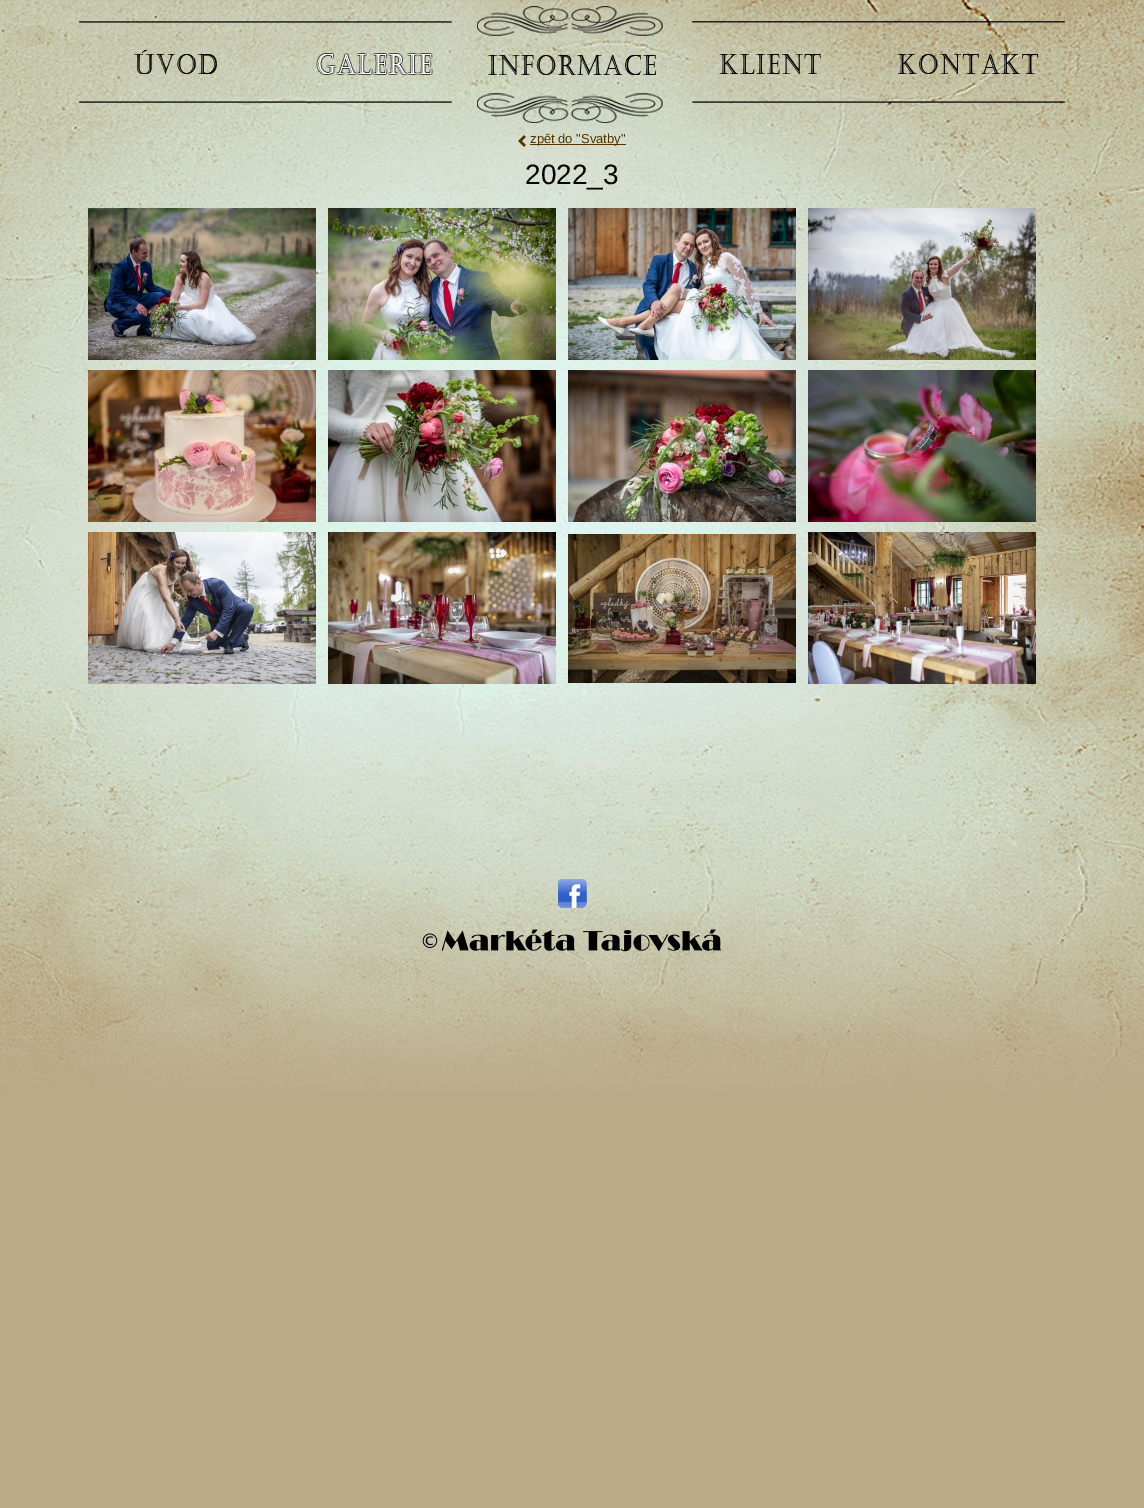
%!PS
<< /PageSize [1144 1508] >> setpagedevice
/picture { 5 dict begin { /h /w /y /x /name } { exch def } forall
  gsave x y translate w h scale
  w h 8 [w 0 0 h 0 0] name (r) file false 3 colorimage grestore end } def
0 1508 translate 1 -1 scale
4 setmiterlimit
0.733 0.667 0.533 setrgbcolor
0 0 1144 1508 rectfill
(img1.rgb) 0 0 1144 1091 picture
(img2.rgb) 79 6 986 117 picture
(img3.rgb) 134 50 83 24 picture
(img4.rgb) 316 53 117 22 picture
(img5.rgb) 488 55 168 20 picture
(img6.rgb) 719 53 102 21 picture
(img7.rgb) 897 53 142 21 picture
(img8.rgb) 518 135 8 12 picture
0.333 0.2 0 setrgbcolor
530 144 96 1 rectfill
/LiberationSans-Regular [13 0 0 -13 0 0] selectfont
530 143 moveto (zpět do "Svatby") show
/LiberationSans-Regular [28 0 0 -28 0 0] selectfont
0 setgray
525 184 moveto (2022_3) show
(img9.rgb) 88 208 228 152 picture
(img10.rgb) 328 208 228 152 picture
(img11.rgb) 568 208 228 152 picture
(img12.rgb) 808 208 228 152 picture
(img13.rgb) 88 370 228 152 picture
(img14.rgb) 328 370 228 152 picture
(img15.rgb) 568 370 228 152 picture
(img16.rgb) 808 370 228 152 picture
(img17.rgb) 88 532 228 152 picture
(img18.rgb) 328 532 228 152 picture
(img19.rgb) 568 534 228 149 picture
(img20.rgb) 808 532 228 152 picture
(img21.rgb) 558 879 29 29 picture
(img22.rgb) 422 929 299 23 picture
showpage
